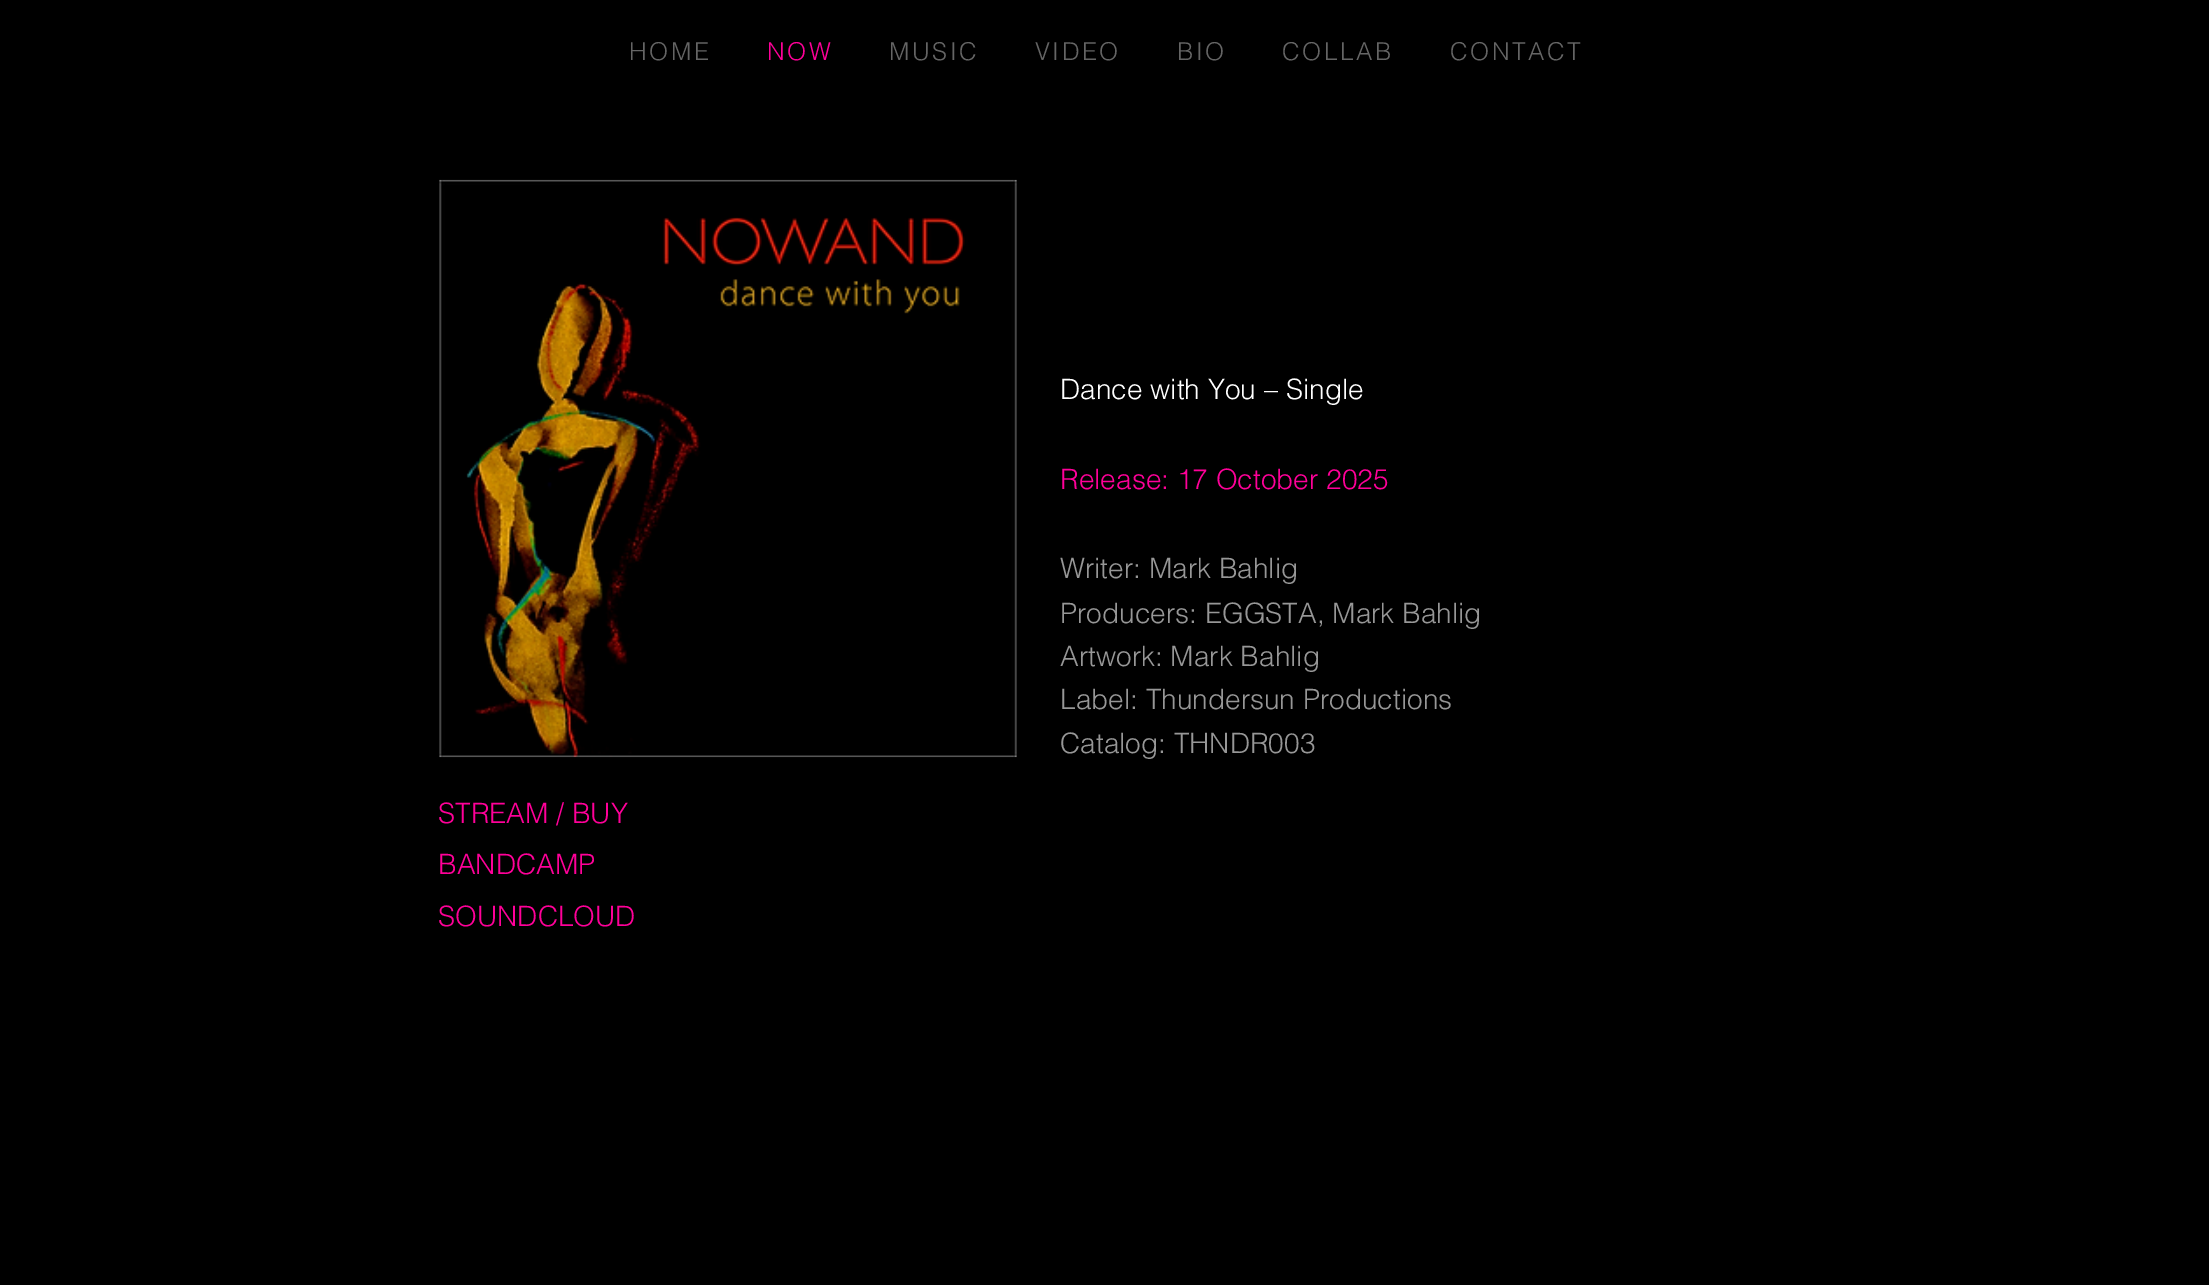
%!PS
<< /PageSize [2209 1285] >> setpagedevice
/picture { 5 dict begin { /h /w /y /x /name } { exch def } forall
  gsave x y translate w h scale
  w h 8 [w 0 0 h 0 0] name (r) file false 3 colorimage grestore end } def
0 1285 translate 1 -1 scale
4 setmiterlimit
0 setgray
0 0 2209 1285 rectfill
/helvetica-Light [24.5 0 0 -24.5 0 0] selectfont
0.396 setgray
629 60 moveto 2.5 0 (HOME) ashow
1 0 0.6 setrgbcolor
767 60 moveto 2.5 0 (NOW) ashow
0.396 setgray
889 60 moveto 2.5 0 (MUSIC) ashow
1035 60 moveto 2.5 0 (VIDEO) ashow
1177 60 moveto 2.5 0 (BIO) ashow
1282 60 moveto 2.5 0 (COLLAB) ashow
1450 60 moveto 2.5 0 (CONTACT) ashow
(img1.rgb) 439 179 578 579 picture
/helvetica-Light [28 0 0 -28 0 0] selectfont
1 setgray
1060 399 moveto (Dance with You – Single) show
1 0 0.6 setrgbcolor
1060 489 moveto (Release: 17 October 2025) show
0.592 setgray
1060 578 moveto (Writer: Mark Bahlig) show
1060 623 moveto (Producers: EGGSTA, Mark Bahlig) show
1060 666 moveto (Artwork: Mark Bahlig) show
1060 709 moveto (Label: Thundersun Productions) show
1060 753 moveto (Catalog: THNDR003) show
1 0 0.6 setrgbcolor
438 823 moveto (STREAM / BUY) show
438 874 moveto (BANDCAMP) show
438 926 moveto (SOUNDCLOUD) show
showpage
